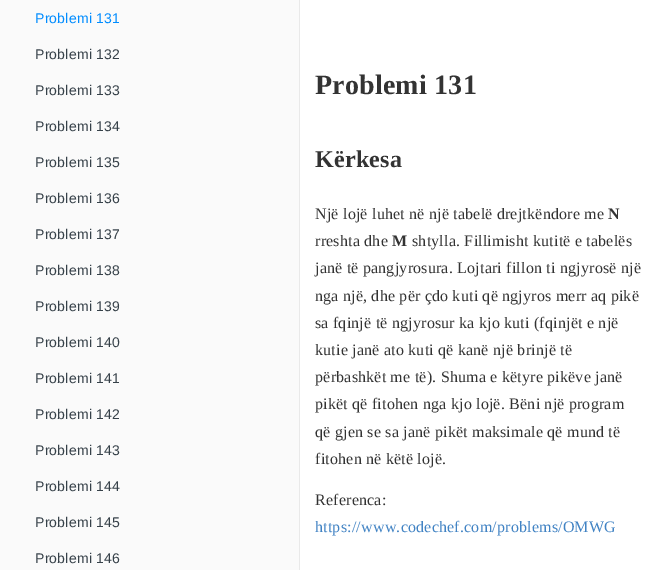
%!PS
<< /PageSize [659 570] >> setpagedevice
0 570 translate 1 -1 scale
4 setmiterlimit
1 setgray
0 0 659 570 rectfill
0.98 setgray
0 0 299 570 rectfill
0.914 setgray
299 0 1 570 rectfill
/LiberationSans-Regular [14 0 0 -14 0 0] selectfont
0 0.549 1 setrgbcolor
35 23 moveto 0.2 0 (Problemi 131) ashow
0.212 0.255 0.286 setrgbcolor
35 59 moveto 0.2 0 (Problemi 132) ashow
35 95 moveto 0.2 0 (Problemi 133) ashow
35 131 moveto 0.2 0 (Problemi 134) ashow
35 167 moveto 0.2 0 (Problemi 135) ashow
35 203 moveto 0.2 0 (Problemi 136) ashow
35 239 moveto 0.2 0 (Problemi 137) ashow
35 275 moveto 0.2 0 (Problemi 138) ashow
35 311 moveto 0.2 0 (Problemi 139) ashow
35 347 moveto 0.2 0 (Problemi 140) ashow
35 383 moveto 0.2 0 (Problemi 141) ashow
35 419 moveto 0.2 0 (Problemi 142) ashow
35 455 moveto 0.2 0 (Problemi 143) ashow
35 491 moveto 0.2 0 (Problemi 144) ashow
35 527 moveto 0.2 0 (Problemi 145) ashow
35 563 moveto 0.2 0 (Problemi 146) ashow
/LiberationSerif-Bold [28 0 0 -28 0 0] selectfont
0.2 setgray
315 94 moveto 0.2 0 (Problemi 131) ashow
/LiberationSerif-Bold [24 0 0 -24 0 0] selectfont
315 167 moveto 0.2 0 (Kërkesa) ashow
/LiberationSerif-Regular [16 0 0 -16 0 0] selectfont
315 219 moveto 0.2 0 (Një lojë luhet në një tabelë drejtkëndore me) ashow
/LiberationSerif-Bold [16 0 0 -16 0 0] selectfont
608 219 moveto 0.2 0 (N) ashow
/LiberationSerif-Regular [16 0 0 -16 0 0] selectfont
315 246 moveto 0.2 0 (rreshta dhe) ashow
/LiberationSerif-Bold [16 0 0 -16 0 0] selectfont
392 246 moveto 0.2 0 (M) ashow
/LiberationSerif-Regular [16 0 0 -16 0 0] selectfont
412 246 moveto 0.2 0 (shtylla. Fillimisht kutitë e tabelës) ashow
315 273 moveto 0.2 0 (janë të pangjyrosura. Lojtari fillon ti ngjyrosë një) ashow
315 301 moveto 0.2 0 (nga një, dhe për çdo kuti që ngjyros merr aq pikë) ashow
315 328 moveto 0.2 0 (sa fqinjë të ngjyrosur ka kjo kuti \(fqinjët e një) ashow
315 355 moveto 0.2 0 (kutie janë ato kuti që kanë një brinjë të) ashow
315 382 moveto 0.2 0 (përbashkët me të\). Shuma e këtyre pikëve janë) ashow
315 409 moveto 0.2 0 (pikët që fitohen nga kjo lojë. Bëni një program) ashow
315 437 moveto 0.2 0 (që gjen se sa janë pikët maksimale që mund të) ashow
315 464 moveto 0.2 0 (fitohen në këtë lojë.) ashow
315 505 moveto 0.2 0 (Referenca:) ashow
0.255 0.514 0.769 setrgbcolor
315 532 moveto 0.2 0 (https://www.codechef.com/problems/OMWG) ashow
showpage
